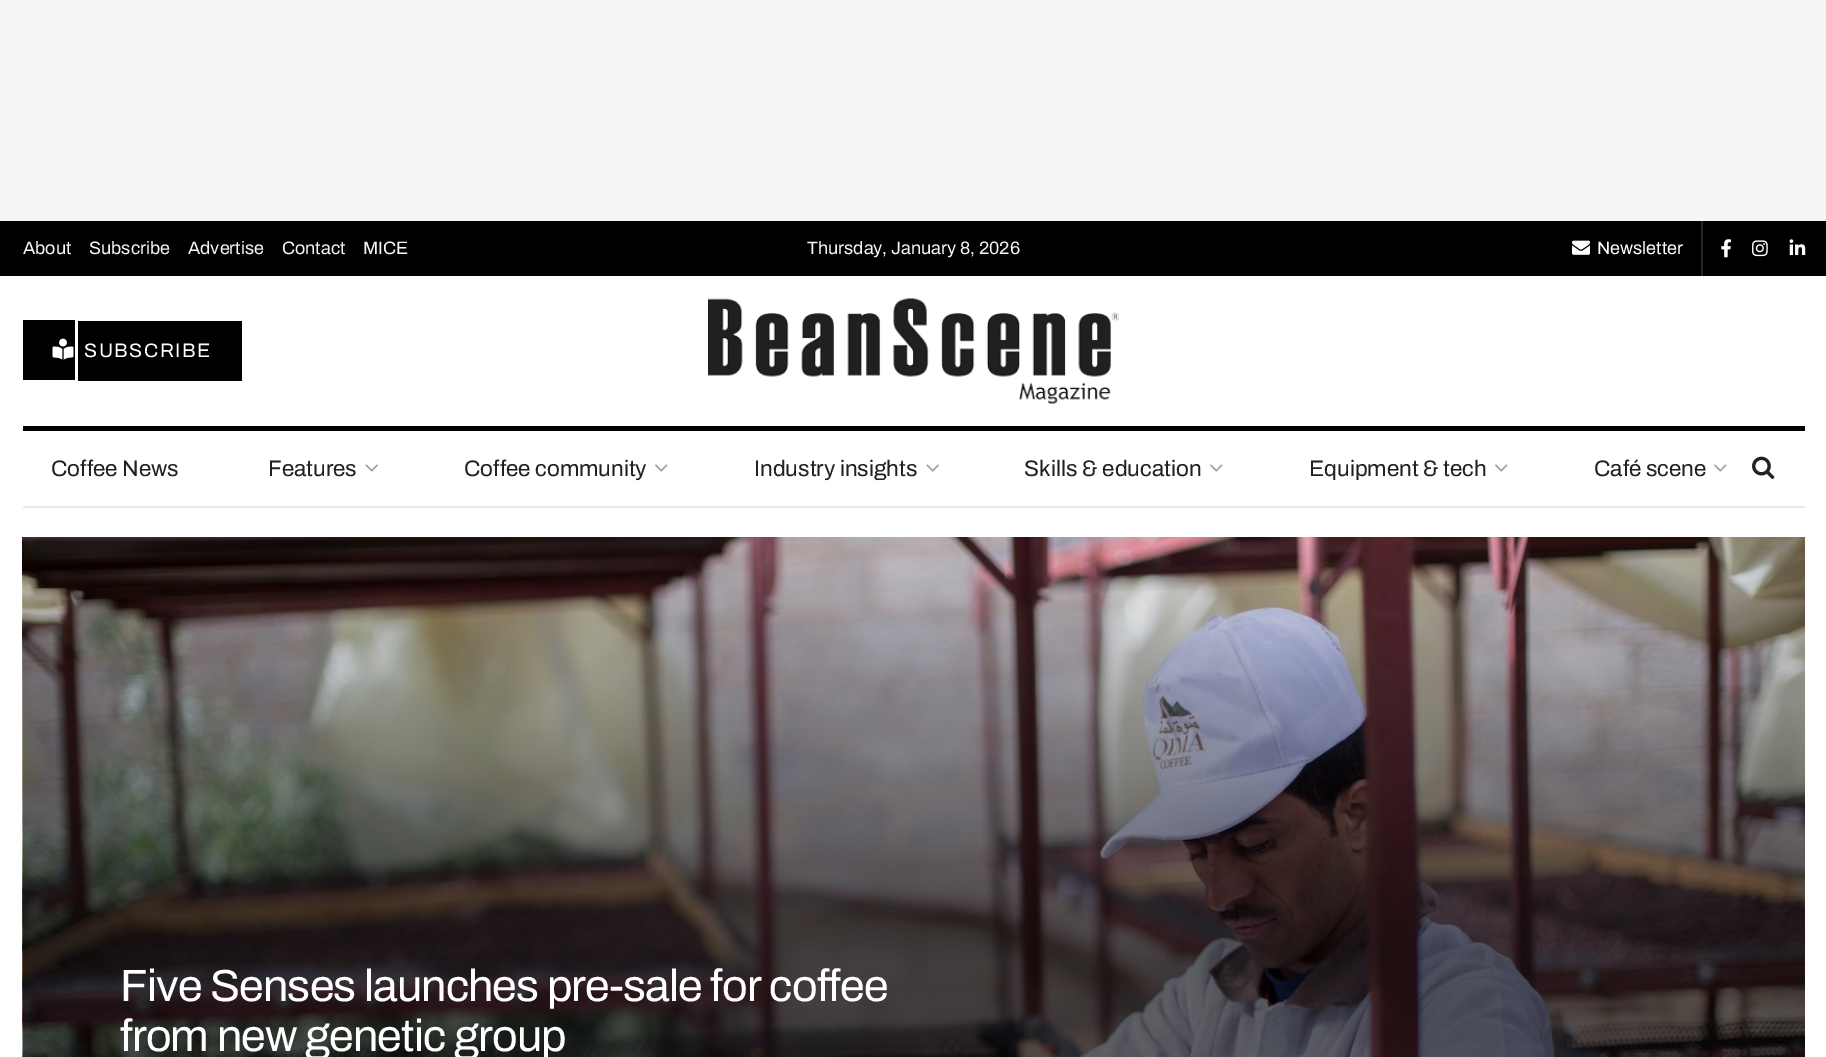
%!PS
<< /PageSize [1826 1057] >> setpagedevice
/picture { 5 dict begin { /h /w /y /x /name } { exch def } forall
  gsave x y translate w h scale
  w h 8 [w 0 0 h 0 0] name (r) file false 3 colorimage grestore end } def
0 1057 translate 1 -1 scale
4 setmiterlimit
1 setgray
0 0 1826 1057 rectfill
0.961 setgray
0 0 1826 221 rectfill
0 setgray
0 221 1826 55 rectfill
/Archivo-SemiBold [18 0 0 -18 0 0] selectfont
0.961 setgray
23 254 moveto (About) show
89 254 moveto (Subscribe) show
188 254 moveto (Advertise) show
282 254 moveto (Contact) show
363 254 moveto (MICE) show
807 254 moveto (Thursday, January 8, 2026) show
0.149 setgray
1701 221 2 55 rectfill
(img1.rgb) 1572 240 18 15 picture
1 setgray
1597 254 moveto (Newsletter) show
(img2.rgb) 1721 239 10 19 picture
(img3.rgb) 1752 240 16 17 picture
(img4.rgb) 1789 239 17 16 picture
0 setgray
23 320 52 60 rectfill
78 321 164 60 rectfill
(img5.rgb) 52 338 22 22 picture
/Archivo-SemiBold [19.5 0 0 -19.5 0 0] selectfont
1 setgray
84 357 moveto 1.5 0 (SUBSCRIBE) ashow
(img6.rgb) 708 298 411 106 picture
0 setgray
23 426 1782 5 rectfill
0.91 setgray
23 506 1782 2 rectfill
/Archivo-SemiBold [22.5 0 0 -22.5 0 0] selectfont
0.129 setgray
51 476 moveto (Coffee News) show
268 476 moveto (Features) show
(img7.rgb) 365 464 13 8 picture
464 476 moveto (Coffee community) show
(img8.rgb) 655 464 13 8 picture
754 476 moveto (Industry insights) show
(img7.rgb) 926 464 13 8 picture
1024 476 moveto (Skills & education) show
(img8.rgb) 1210 464 13 8 picture
1309 476 moveto (Equipment & tech) show
(img8.rgb) 1495 464 13 8 picture
1594 476 moveto (Café scene) show
(img8.rgb) 1714 464 13 8 picture
(img9.rgb) 1752 456 23 23 picture
(img10.rgb) 22 537 1783 520 picture
/Archivo-SemiBold [45 0 0 -45 0 0] selectfont
1 setgray
120 1001 moveto -0.9 0 (Five Senses launches pre-sale for coffee) ashow
120 1051 moveto -0.9 0 (from new genetic group) ashow
showpage
